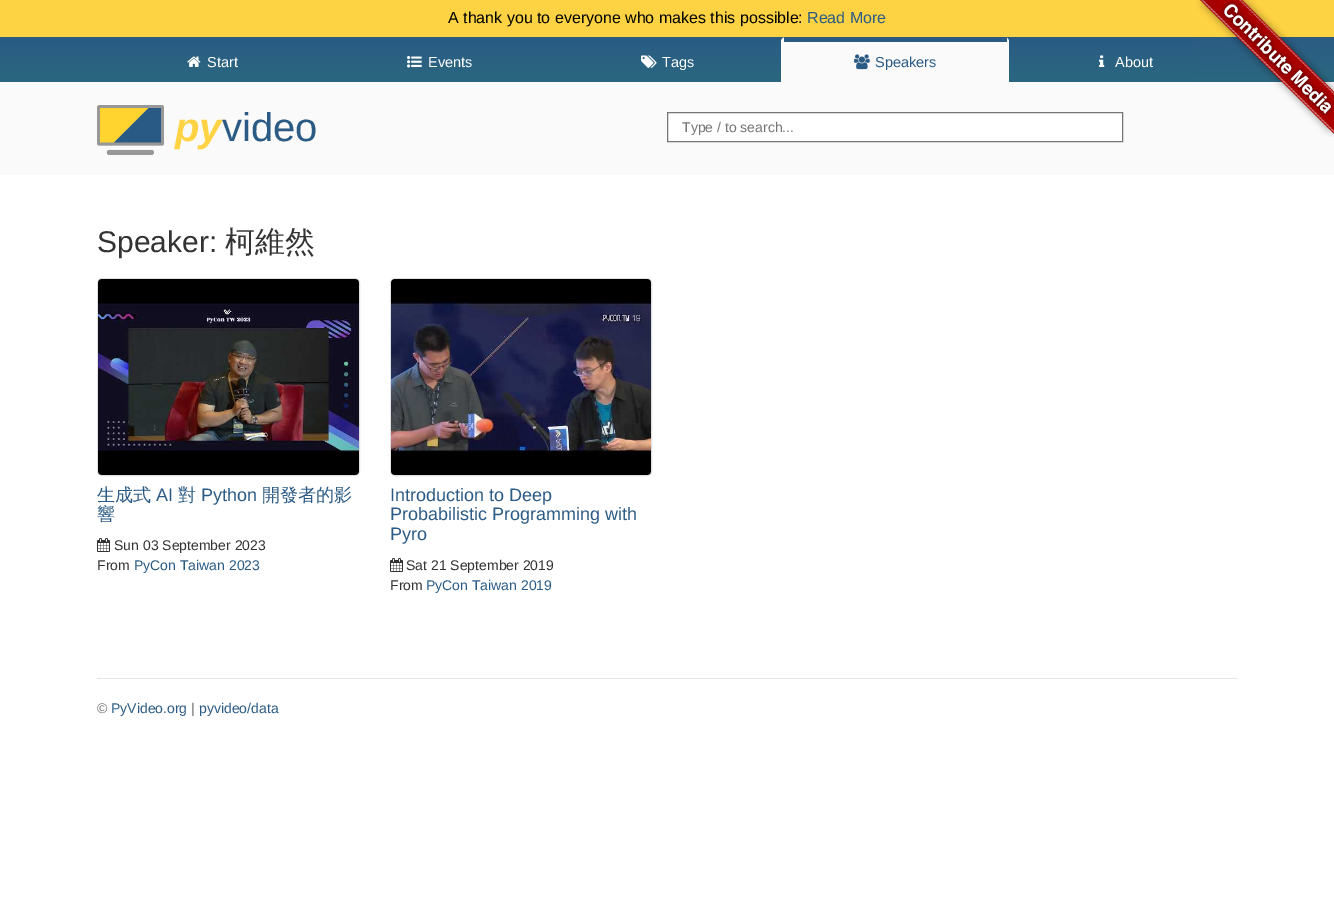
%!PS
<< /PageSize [1334 900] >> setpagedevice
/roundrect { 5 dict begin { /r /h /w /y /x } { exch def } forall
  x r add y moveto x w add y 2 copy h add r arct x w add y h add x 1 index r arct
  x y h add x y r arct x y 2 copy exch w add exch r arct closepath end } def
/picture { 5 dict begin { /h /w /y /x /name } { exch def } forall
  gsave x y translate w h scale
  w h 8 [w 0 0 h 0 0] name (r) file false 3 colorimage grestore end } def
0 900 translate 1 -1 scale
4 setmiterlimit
1 setgray
0 0 1334 900 rectfill
0.996 0.827 0.263 setrgbcolor
0 0 1334 37 rectfill
/LiberationSans-Regular [16 0 0 -16 0 0] selectfont
0 setgray
448 23 moveto (A thank you to everyone who makes this possible:) show
0.169 0.357 0.518 setrgbcolor
807 23 moveto (Read More) show
0.98 setgray
0 82 1334 93 rectfill
gsave newpath 0 37 moveto 1334 37 lineto 1334 82 lineto 0 82 lineto closepath clip newpath
<< /ShadingType 2 /ColorSpace /DeviceRGB /Coords [667 37 667 82] /Extend [true true] /Function << /FunctionType 2 /Domain [0 1] /C0 [0.169 0.357 0.518] /C1 [0.165 0.404 0.498] /N 1 >> >> shfill grestore
(img1.rgb) 1197 0 137 137 picture
(img2.rgb) 187 56 14 11 picture
/LiberationSans-Regular [14.5 0 0 -14.5 0 0] selectfont
1 setgray
207 67 moveto (Start) show
(img3.rgb) 407 56 15 12 picture
428 67 moveto (Events) show
(img4.rgb) 641 55 16 13 picture
662 67 moveto (Tags) show
0.98 setgray
newpath 786 37 moveto 1004 37 lineto 1007 37 1009 39 1009 42 curveto 1009 82 lineto 781 82 lineto 781 42 lineto 781 39 783 37 786 37 curveto closepath fill
0.169 0.357 0.518 setrgbcolor
784 37 223 5 rectfill
(img5.rgb) 854 54 16 16 picture
875 67 moveto (Speakers) show
(img6.rgb) 1099 55 6 12 picture
1 setgray
1115 67 moveto (About) show
(img7.rgb) 97 105 67 50 picture
/LiberationSans-BoldItalic [40 0 0 -40 0 0] selectfont
1 0.827 0.263 setrgbcolor
175 141 moveto (py) show
/LiberationSans-Regular [40 0 0 -40 0 0] selectfont
0.169 0.357 0.518 setrgbcolor
222 141 moveto (video) show
1 setgray
newpath 667.5 112.5 moveto 1122.5 112.5 lineto 1122.5 141.5 lineto 667.5 141.5 lineto closepath gsave fill grestore
0.463 setgray
stroke
/LiberationSans-Regular [14 0 0 -14 0 0] selectfont
0.459 setgray
682 132 moveto (Type / to search...) show
/LiberationSans-Regular [30 0 0 -30 0 0] selectfont
0.2 setgray
97 252 moveto (Speaker:) show
/WenQuanYiZenHei-Medium [30 0 0 -30 0 0] selectfont
225 252 moveto (柯維然) show
0.878 setgray
97.5 278.5 262 197 4.5 roundrect stroke
(img8.rgb) 98 279 261 196 picture
/WenQuanYiZenHei-Medium [18 0 0 -18 0 0] selectfont
0.169 0.357 0.518 setrgbcolor
97 501 moveto (生成式) show
/LiberationSans-Regular [18 0 0 -18 0 0] selectfont
156 501 moveto (AI) show
/WenQuanYiZenHei-Medium [18 0 0 -18 0 0] selectfont
178 501 moveto (對) show
/LiberationSans-Regular [18 0 0 -18 0 0] selectfont
201 501 moveto (Python) show
/WenQuanYiZenHei-Medium [18 0 0 -18 0 0] selectfont
262 501 moveto (開發者的影) show
97 520 moveto (響) show
(img9.rgb) 97 538 13 14 picture
/LiberationSans-Regular [14 0 0 -14 0 0] selectfont
0.2 setgray
114 550 moveto (Sun 03 September 2023) show
97 570 moveto (From) show
0.169 0.357 0.518 setrgbcolor
134 570 moveto (PyCon Taiwan 2023) show
0.878 setgray
390.5 278.5 261 197 4.5 roundrect stroke
(img10.rgb) 391 279 260 196 picture
/LiberationSans-Regular [18 0 0 -18 0 0] selectfont
0.169 0.357 0.518 setrgbcolor
390 501 moveto (Introduction to Deep) show
390 520 moveto (Probabilistic Programming with) show
390 540 moveto (Pyro) show
(img9.rgb) 390 558 13 14 picture
/LiberationSans-Regular [14 0 0 -14 0 0] selectfont
0.2 setgray
406 570 moveto (Sat 21 September 2019) show
390 590 moveto (From) show
0.169 0.357 0.518 setrgbcolor
426 590 moveto (PyCon Taiwan 2019) show
0.898 setgray
97 678 1140 1 rectfill
0.459 setgray
97 713 moveto (©) show
0.169 0.357 0.518 setrgbcolor
111 713 moveto (PyVideo.org) show
0.459 setgray
191 713 moveto (|) show
0.169 0.357 0.518 setrgbcolor
199 713 moveto (pyvideo/data) show
showpage
